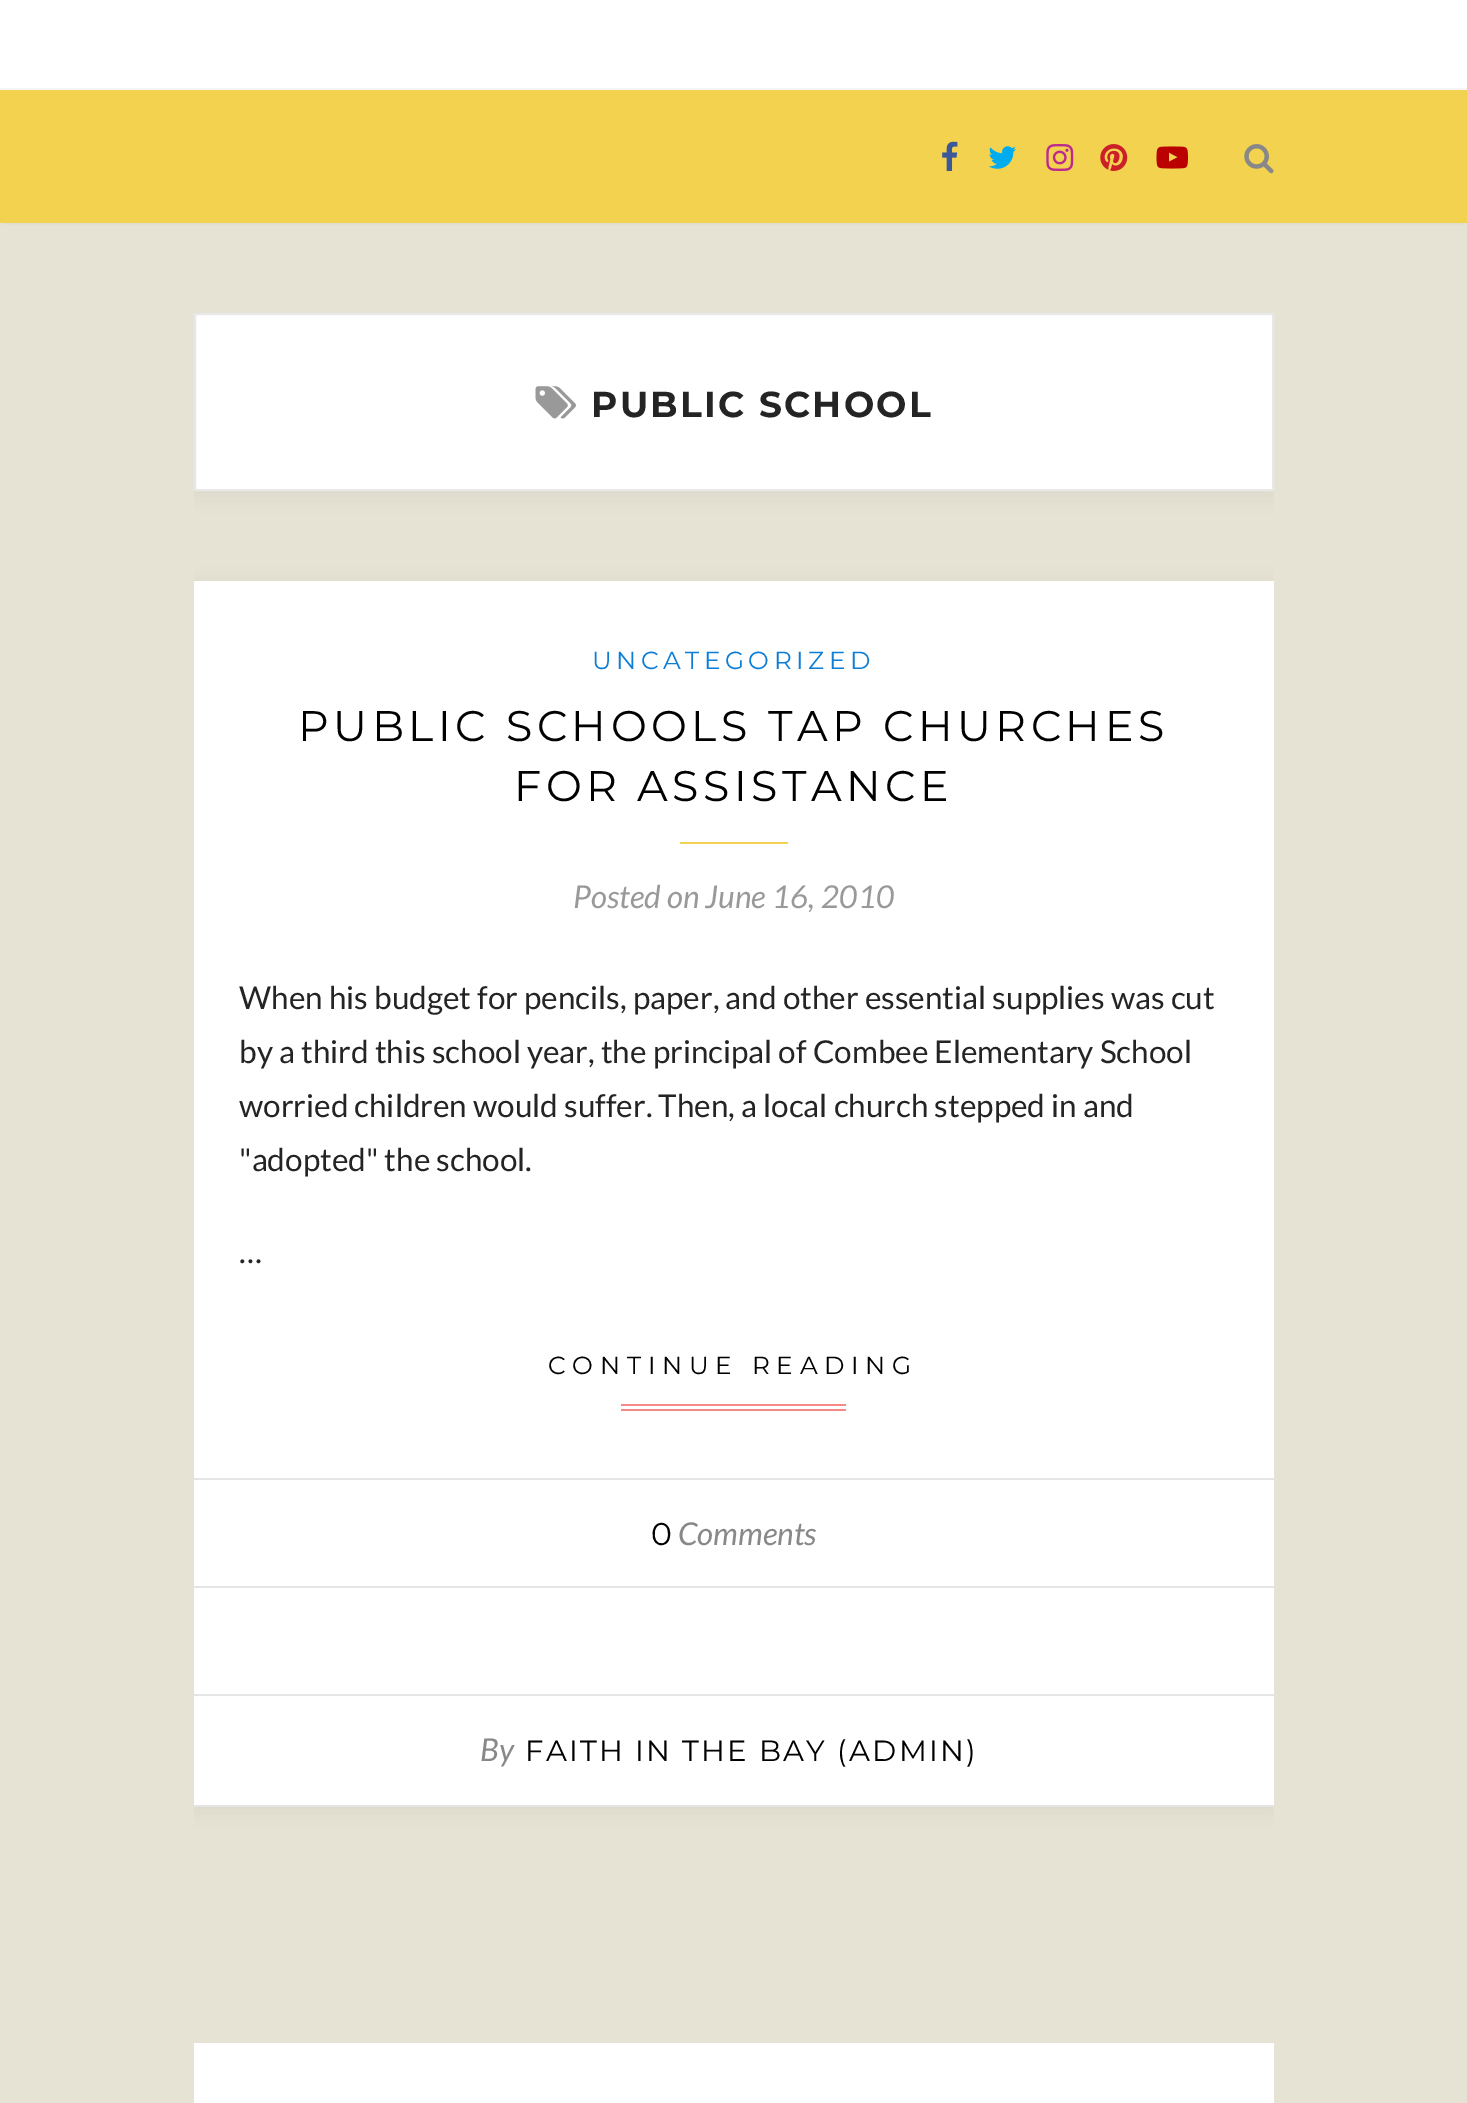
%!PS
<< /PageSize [1467 2103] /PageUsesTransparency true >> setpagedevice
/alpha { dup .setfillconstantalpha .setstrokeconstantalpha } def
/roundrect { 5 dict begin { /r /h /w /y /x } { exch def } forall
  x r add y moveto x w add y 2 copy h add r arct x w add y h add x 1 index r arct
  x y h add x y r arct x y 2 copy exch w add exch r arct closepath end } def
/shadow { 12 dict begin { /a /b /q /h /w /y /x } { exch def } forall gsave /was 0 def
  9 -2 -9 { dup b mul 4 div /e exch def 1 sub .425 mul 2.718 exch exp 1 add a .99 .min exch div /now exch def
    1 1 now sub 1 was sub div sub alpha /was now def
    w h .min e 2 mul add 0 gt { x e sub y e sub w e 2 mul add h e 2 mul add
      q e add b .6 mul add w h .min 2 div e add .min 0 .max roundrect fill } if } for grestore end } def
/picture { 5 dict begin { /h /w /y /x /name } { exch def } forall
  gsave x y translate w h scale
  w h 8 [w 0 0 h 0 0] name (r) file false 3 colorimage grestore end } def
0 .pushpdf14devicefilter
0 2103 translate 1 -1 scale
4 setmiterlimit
0.906 0.89 0.831 setrgbcolor
0 0 1467 2103 rectfill
1 setgray
0 0 1467 88 rectfill
0 setgray
5 95 1458 126 0 2 0.2 shadow
0.953 0.824 0.314 setrgbcolor
0 90 1467 133 rectfill
0.961 setgray
0 88 1467 2 rectfill
(img1.rgb) 942 141 16 30 picture
(img2.rgb) 988 146 28 23 picture
(img3.rgb) 1046 144 28 27 picture
(img4.rgb) 1100 144 28 27 picture
(img5.rgb) 1156 146 32 23 picture
(img6.rgb) 1244 144 30 30 picture
gsave
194 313 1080 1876 rectclip
0 setgray
194 317 1080 178 0 11 0.05 shadow
grestore
1 setgray
newpath 195 314 moveto 1273 314 lineto 1273 490 lineto 195 490 lineto closepath gsave fill grestore
0.91 setgray
2 setlinewidth
stroke
(img7.rgb) 535 386 41 33 picture
/Montserrat-Bold [36 0 0 -36 0 0] selectfont
0.141 setgray
591 417 moveto 2.25 0 (PUBLIC SCHOOL) ashow
gsave
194 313 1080 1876 rectclip
0 setgray
194 585 1080 1226 0 11 0.05 shadow
grestore
1 setgray
194 581 1080 1224 rectfill
/Montserrat-Regular [24.75 0 0 -24.75 0 0] selectfont
0.047 0.494 0.839 setrgbcolor
592 669 moveto 4.5 0 (UNCATEGORIZED) ashow
/Montserrat-Regular [42.75 0 0 -42.75 0 0] selectfont
0 setgray
298 741 moveto 4.5 0 (PUBLIC SCHOOLS TAP CHURCHES) ashow
514 801 moveto 4.5 0 (FOR ASSISTANCE) ashow
0.953 0.824 0.314 setrgbcolor
680 842 108 2 rectfill
/Lato-Italic [31.5 0 0 -31.5 0 0] selectfont
0.6 setgray
573 908 moveto (Posted on June 16, 2010) show
/Lato-Regular [31.5 0 0 -31.5 0 0] selectfont
0.141 setgray
239 1009 moveto (When his budget for pencils, paper, and other essential supplies was cut) show
239 1063 moveto (by a third this school year, the principal of Combee Elementary School) show
239 1117 moveto (worried children would suffer. Then, a local church stepped in and) show
239 1171 moveto ("adopted" the school.) show
239 1263 moveto (…) show
/Montserrat-Regular [24.75 0 0 -24.75 0 0] selectfont
0 setgray
548 1374 moveto 6.75 0 (CONTINUE READING) ashow
0.969 0.533 0.533 setrgbcolor
621 1404 225 2 rectfill
621 1409 225 2 rectfill
0.898 setgray
194 1478 1080 2 rectfill
194 1805 1080 2 rectfill
194 1586 1080 2 rectfill
/Montserrat-Regular [31.5 0 0 -31.5 0 0] selectfont
0 setgray
651 1545 moveto (0) show
/Lato-Italic [31.5 0 0 -31.5 0 0] selectfont
0.533 setgray
678 1545 moveto (Comments) show
0.898 setgray
194 1694 1080 2 rectfill
0.533 setgray
480 1761 moveto (By) show
/Montserrat-Regular [29.25 0 0 -29.25 0 0] selectfont
0 setgray
525 1761 moveto 2.25 0 (FAITH IN THE BAY \(ADMIN\)) ashow
1 setgray
194 2043 1080 60 rectfill
.poppdf14devicefilter showpage
